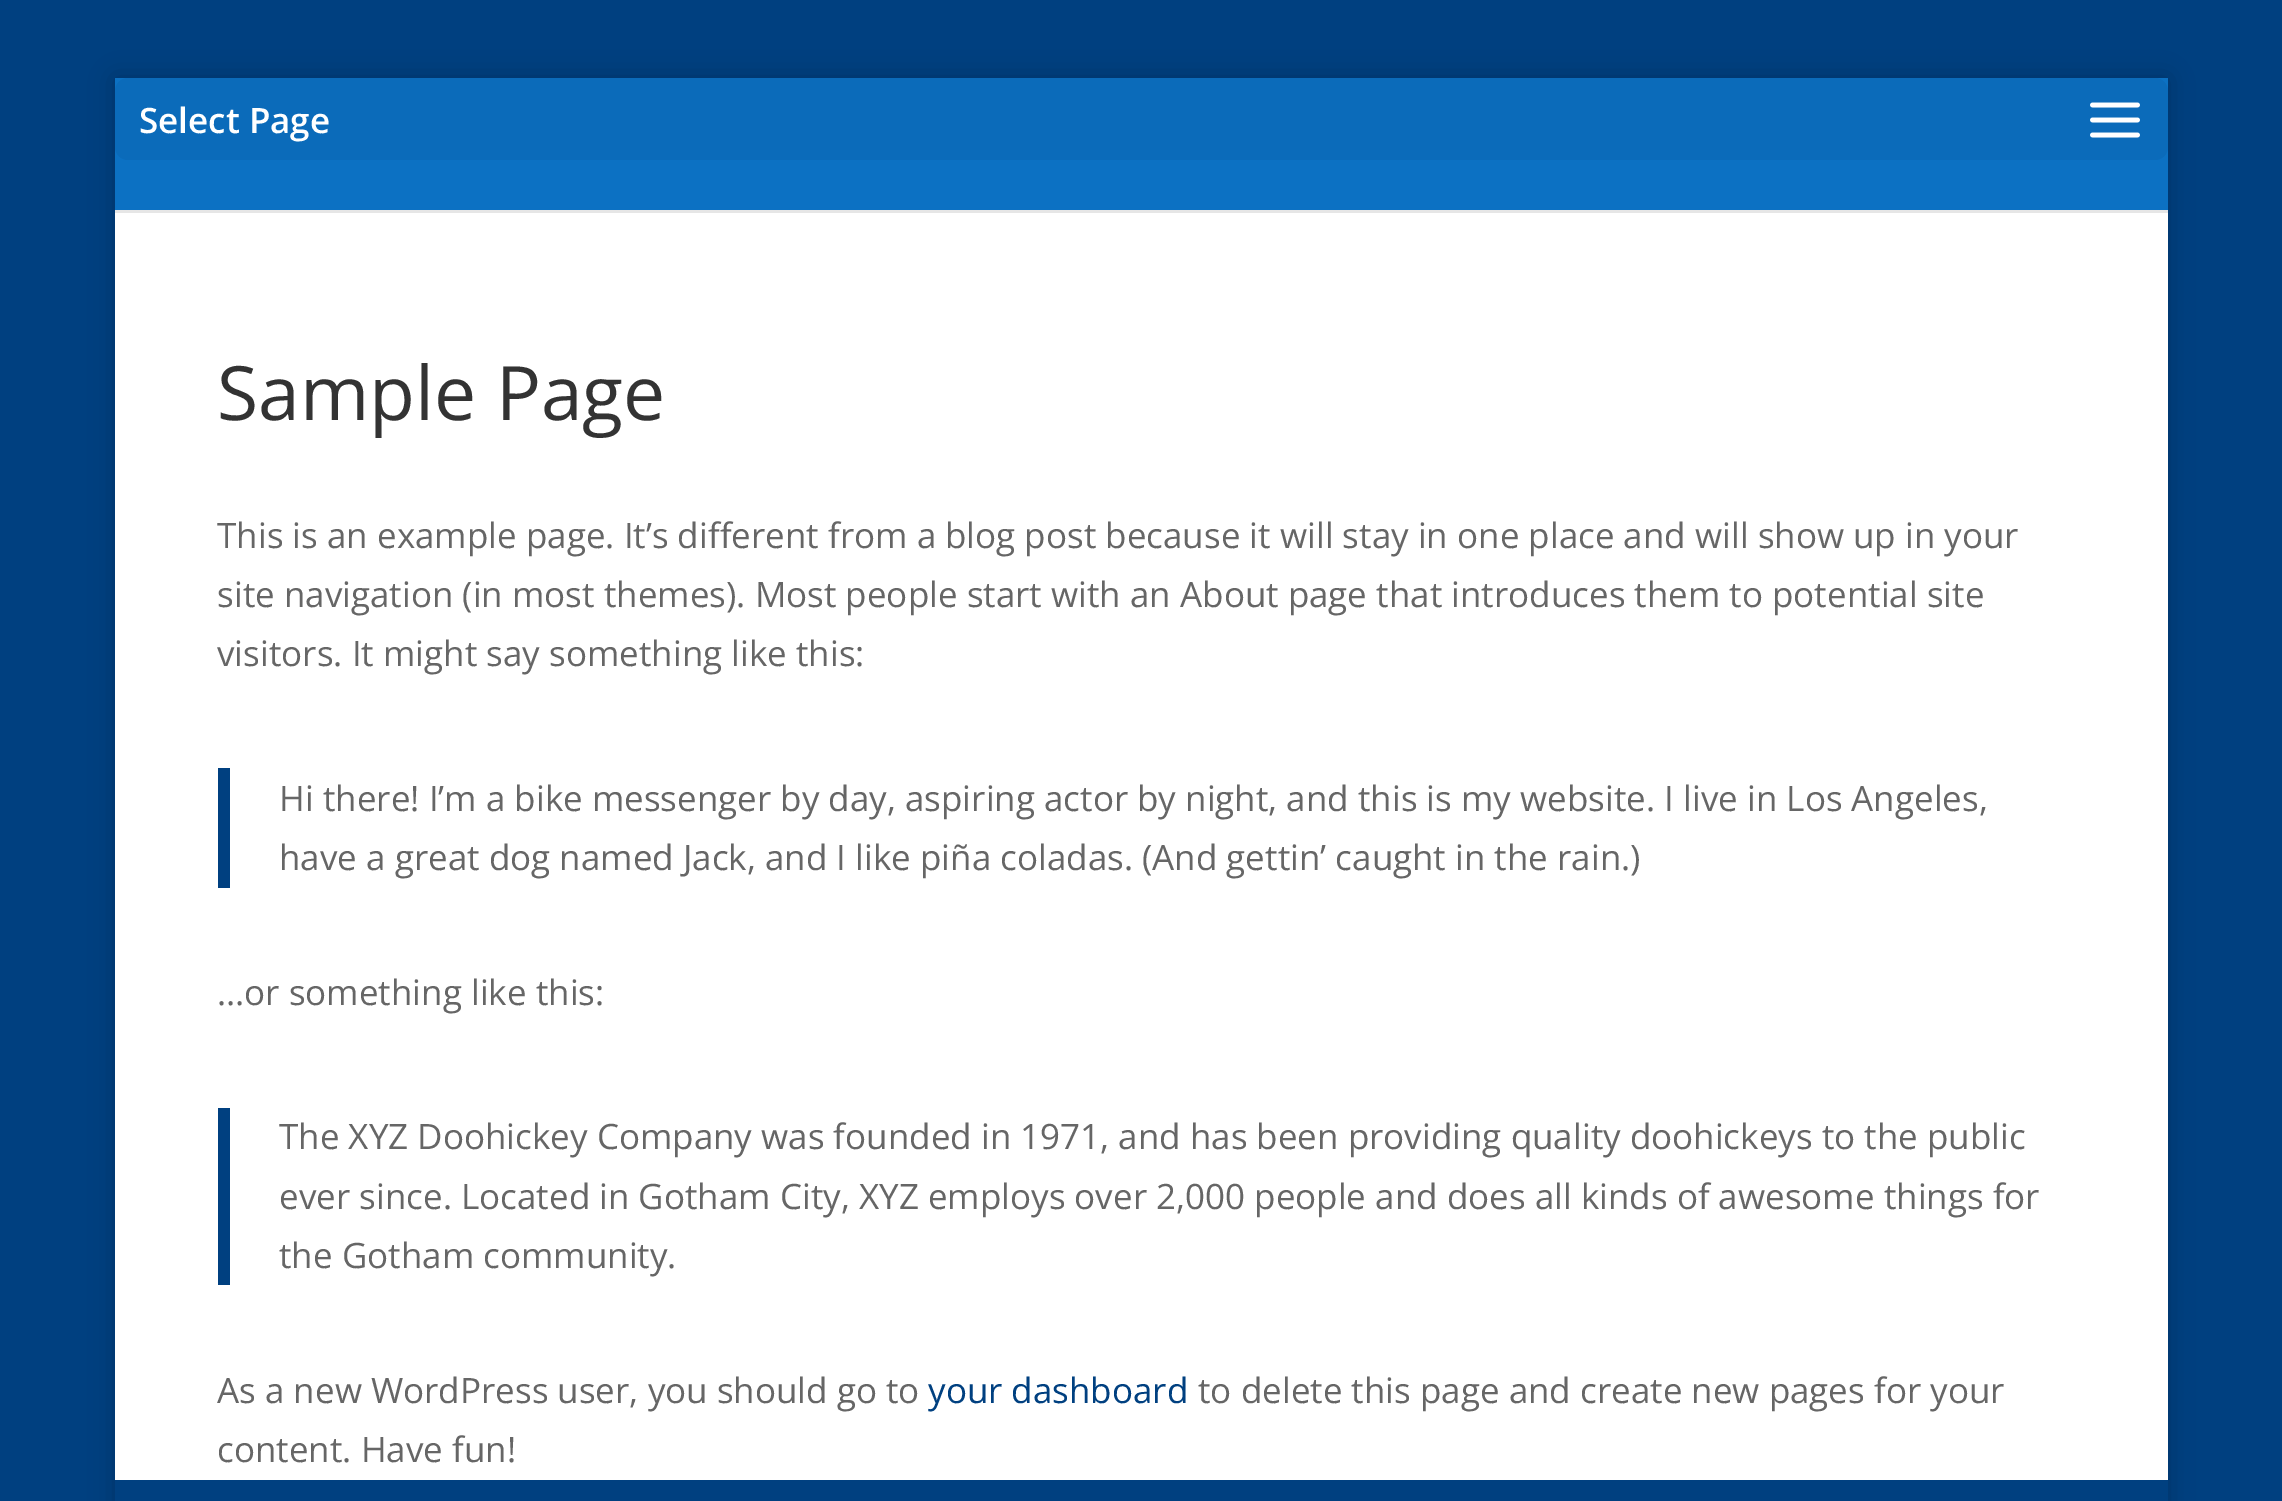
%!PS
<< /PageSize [2282 1501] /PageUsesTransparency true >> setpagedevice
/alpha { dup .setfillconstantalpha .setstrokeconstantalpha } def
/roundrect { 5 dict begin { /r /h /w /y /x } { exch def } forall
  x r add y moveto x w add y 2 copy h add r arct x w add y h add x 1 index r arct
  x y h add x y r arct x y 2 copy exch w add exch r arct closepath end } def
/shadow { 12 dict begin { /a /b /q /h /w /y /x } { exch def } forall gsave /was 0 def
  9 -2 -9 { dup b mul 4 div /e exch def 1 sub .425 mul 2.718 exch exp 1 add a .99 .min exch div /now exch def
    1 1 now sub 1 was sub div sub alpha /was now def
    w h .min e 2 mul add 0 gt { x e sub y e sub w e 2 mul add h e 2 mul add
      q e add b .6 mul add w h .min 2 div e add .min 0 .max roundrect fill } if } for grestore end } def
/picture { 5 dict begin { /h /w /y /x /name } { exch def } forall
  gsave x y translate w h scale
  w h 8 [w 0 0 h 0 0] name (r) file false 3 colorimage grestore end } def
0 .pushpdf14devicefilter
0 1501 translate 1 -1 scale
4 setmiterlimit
0 0.251 0.502 setrgbcolor
0 0 2282 1501 rectfill
gsave
newpath 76 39 moveto 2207 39 lineto 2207 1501 lineto 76 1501 lineto closepath 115 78 moveto 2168 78 lineto 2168 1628 lineto 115 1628 lineto closepath eoclip newpath
0 setgray
115 78 2053 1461 0 12.5 0.2 shadow
grestore
0.902 setgray
newpath 115 210 moveto 115 213 lineto 2168 213 lineto 2168 80 lineto 2168 210 lineto closepath fill
0.047 0.443 0.765 setrgbcolor
115 78 2053 132 rectfill
0.043 0.42 0.729 setrgbcolor
115 78 2053 82 13 roundrect fill
/OpenSans-SemiBold [35 0 0 -35 0 0] selectfont
1 setgray
139 133 moveto (Select Page) show
(img1.rgb) 2090 102 50 36 picture
115 213 2053 1267 rectfill
/OpenSans-Regular [75 0 0 -75 0 0] selectfont
0.2 setgray
217 420 moveto (Sample Page) show
/OpenSans-Regular [35 0 0 -35 0 0] selectfont
0.4 setgray
217 548 moveto (This is an example page. It’s different from a blog post because it will stay in one place and will show up in your) show
217 607 moveto (site navigation \(in most themes\). Most people start with an About page that introduces them to potential site) show
217 666 moveto (visitors. It might say something like this:) show
0 0.251 0.502 setrgbcolor
218 768 12 120 rectfill
0.4 setgray
279 811 moveto (Hi there! I’m a bike messenger by day, aspiring actor by night, and this is my website. I live in Los Angeles,) show
279 870 moveto (have a great dog named Jack, and I like piña coladas. \(And gettin’ caught in the rain.\)) show
217 1005 moveto (…or something like this:) show
0 0.251 0.502 setrgbcolor
218 1108 12 177 rectfill
0.4 setgray
279 1149 moveto (The XYZ Doohickey Company was founded in 1971, and has been providing quality doohickeys to the public) show
279 1209 moveto (ever since. Located in Gotham City, XYZ employs over 2,000 people and does all kinds of awesome things for) show
279 1268 moveto (the Gotham community.) show
217 1403 moveto (As a new WordPress user, you should go to) show
0 0.251 0.502 setrgbcolor
928 1403 moveto (your dashboard) show
0.4 setgray
1198 1403 moveto (to delete this page and create new pages for your) show
217 1462 moveto (content. Have fun!) show
.poppdf14devicefilter showpage
